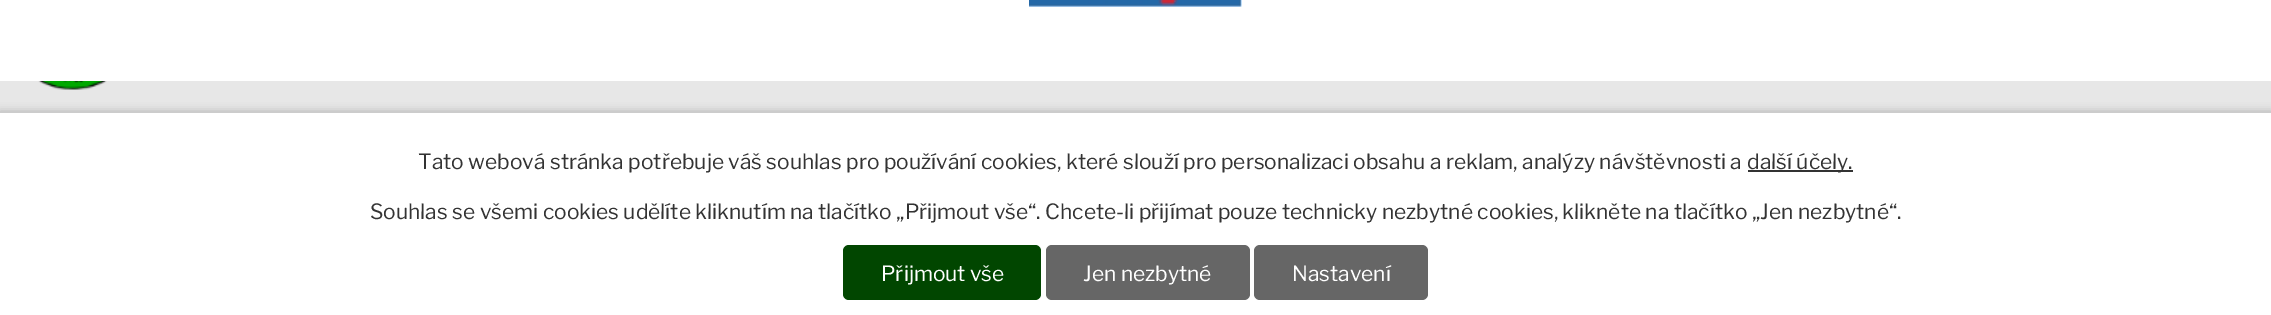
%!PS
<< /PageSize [2271 315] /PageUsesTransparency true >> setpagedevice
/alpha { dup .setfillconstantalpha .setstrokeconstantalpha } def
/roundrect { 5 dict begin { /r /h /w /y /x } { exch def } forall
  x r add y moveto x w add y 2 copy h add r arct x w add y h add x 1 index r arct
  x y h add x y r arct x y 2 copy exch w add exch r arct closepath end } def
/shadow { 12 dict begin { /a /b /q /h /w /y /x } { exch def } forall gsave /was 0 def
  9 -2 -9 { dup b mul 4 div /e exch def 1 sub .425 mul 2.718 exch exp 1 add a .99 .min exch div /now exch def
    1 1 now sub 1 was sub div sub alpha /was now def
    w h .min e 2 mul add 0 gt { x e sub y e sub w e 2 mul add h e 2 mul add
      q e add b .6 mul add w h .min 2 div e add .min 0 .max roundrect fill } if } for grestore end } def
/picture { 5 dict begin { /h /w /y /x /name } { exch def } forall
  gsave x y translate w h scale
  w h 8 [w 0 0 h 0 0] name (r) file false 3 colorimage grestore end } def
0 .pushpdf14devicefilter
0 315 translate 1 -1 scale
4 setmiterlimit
1 setgray
0 0 2271 315 rectfill
gsave newpath 0 81 moveto 2271 81 lineto 2271 111 lineto 0 111 lineto closepath clip newpath
<< /ShadingType 2 /ColorSpace /DeviceRGB /Coords [1135 -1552 1136 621] /Extend [true true] /Function << /FunctionType 3 /Domain [0 1] /Functions [<< /FunctionType 2 /Domain [0 1] /C0 [1 1 1] /C1 [0.906 0.906 0.906] /N 1 >> << /FunctionType 2 /Domain [0 1] /C0 [0.906 0.906 0.906] /C1 [0.906 0.906 0.906] /N 1 >>] /Bounds [0.62] /Encode [0 1 0 1] >> >> shfill grestore
(img1.rgb) 38 81 69 9 picture
(img2.rgb) 1029 0 213 7 picture
0 setgray
0 111 2271 204 0 4 0.2 shadow
1 setgray
0 113 2271 202 rectfill
0.8 setgray
0 111 2271 2 rectfill
/LibreFranklin-Regular [21 0 0 -21 0 0] selectfont
0.2 setgray
418 169 moveto (Tato webová stránka potřebuje váš souhlas pro používání cookies, které slouží pro personalizaci obsahu a reklam, analýzy návštěvnosti a) show
1748 170 105 2 rectfill
1747 169 moveto (další účely.) show
370 219 moveto (Souhlas se všemi cookies udělíte kliknutím na tlačítko „Přijmout vše“. Chcete-li přijímat pouze technicky nezbytné cookies, klikněte na tlačítko „Jen nezbytné“.) show
0.004 0.275 0 setrgbcolor
843 245 198 55 6 roundrect fill
1 setgray
881 281 moveto (Přijmout vše) show
0.4 setgray
1046 245 204 55 6 roundrect fill
1 setgray
1083 281 moveto (Jen nezbytné) show
0.4 setgray
1254 245 174 55 6 roundrect fill
1 setgray
1292 281 moveto (Nastavení) show
.poppdf14devicefilter showpage
